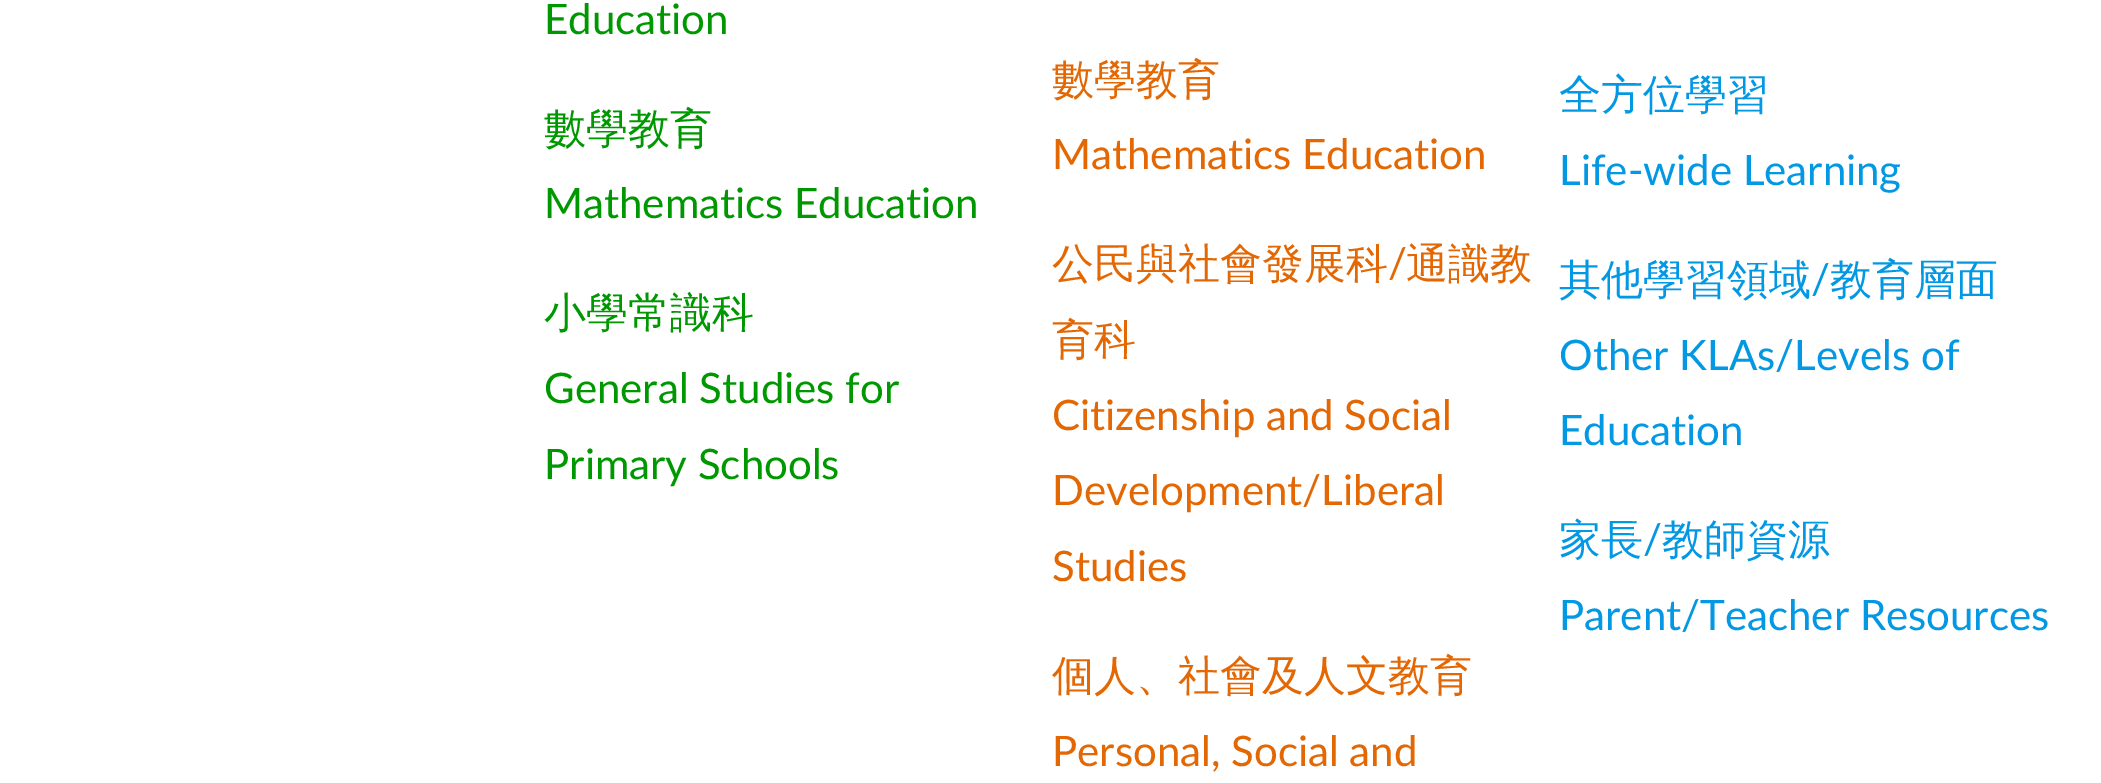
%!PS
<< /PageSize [2101 783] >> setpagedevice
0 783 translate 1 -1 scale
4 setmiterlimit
1 setgray
0 0 2101 783 rectfill
/Lato-Regular [42 0 0 -42 0 0] selectfont
0 0.596 0 setrgbcolor
544 34 moveto (Education) show
/WenQuanYiZenHei-Medium [42 0 0 -42 0 0] selectfont
544 143 moveto (數學教育) show
/Lato-Regular [42 0 0 -42 0 0] selectfont
544 218 moveto (Mathematics Education) show
/WenQuanYiZenHei-Medium [42 0 0 -42 0 0] selectfont
544 327 moveto (小學常識科) show
/Lato-Regular [42 0 0 -42 0 0] selectfont
544 403 moveto (General Studies for) show
544 479 moveto (Primary Schools) show
/WenQuanYiZenHei-Medium [42 0 0 -42 0 0] selectfont
0.89 0.404 0.008 setrgbcolor
1052 94 moveto (數學教育) show
/Lato-Regular [42 0 0 -42 0 0] selectfont
1052 169 moveto (Mathematics Education) show
/WenQuanYiZenHei-Medium [42 0 0 -42 0 0] selectfont
1052 278 moveto (公民與社會發展科) show
/Lato-Regular [42 0 0 -42 0 0] selectfont
1388 278 moveto (/) show
/WenQuanYiZenHei-Medium [42 0 0 -42 0 0] selectfont
1406 278 moveto (通識教) show
1052 354 moveto (育科) show
/Lato-Regular [42 0 0 -42 0 0] selectfont
1052 430 moveto (Citizenship and Social) show
1052 505 moveto (Development/Liberal) show
1052 581 moveto (Studies) show
/WenQuanYiZenHei-Medium [42 0 0 -42 0 0] selectfont
1052 690 moveto (個人、社會及人文教育) show
/Lato-Regular [42 0 0 -42 0 0] selectfont
1052 766 moveto (Personal, Social and) show
/WenQuanYiZenHei-Medium [42 0 0 -42 0 0] selectfont
0.008 0.596 0.89 setrgbcolor
1559 109 moveto (全方位學習) show
/Lato-Regular [42 0 0 -42 0 0] selectfont
1559 185 moveto (Life-wide Learning) show
/WenQuanYiZenHei-Medium [42 0 0 -42 0 0] selectfont
1559 294 moveto (其他學習領域) show
/Lato-Regular [42 0 0 -42 0 0] selectfont
1811 294 moveto (/) show
/WenQuanYiZenHei-Medium [42 0 0 -42 0 0] selectfont
1830 294 moveto (教育層面) show
/Lato-Regular [42 0 0 -42 0 0] selectfont
1559 370 moveto (Other KLAs/Levels of) show
1559 445 moveto (Education) show
/WenQuanYiZenHei-Medium [42 0 0 -42 0 0] selectfont
1559 554 moveto (家長) show
/Lato-Regular [42 0 0 -42 0 0] selectfont
1643 554 moveto (/) show
/WenQuanYiZenHei-Medium [42 0 0 -42 0 0] selectfont
1662 554 moveto (教師資源) show
/Lato-Regular [42 0 0 -42 0 0] selectfont
1559 630 moveto (Parent/Teacher Resources) show
showpage
